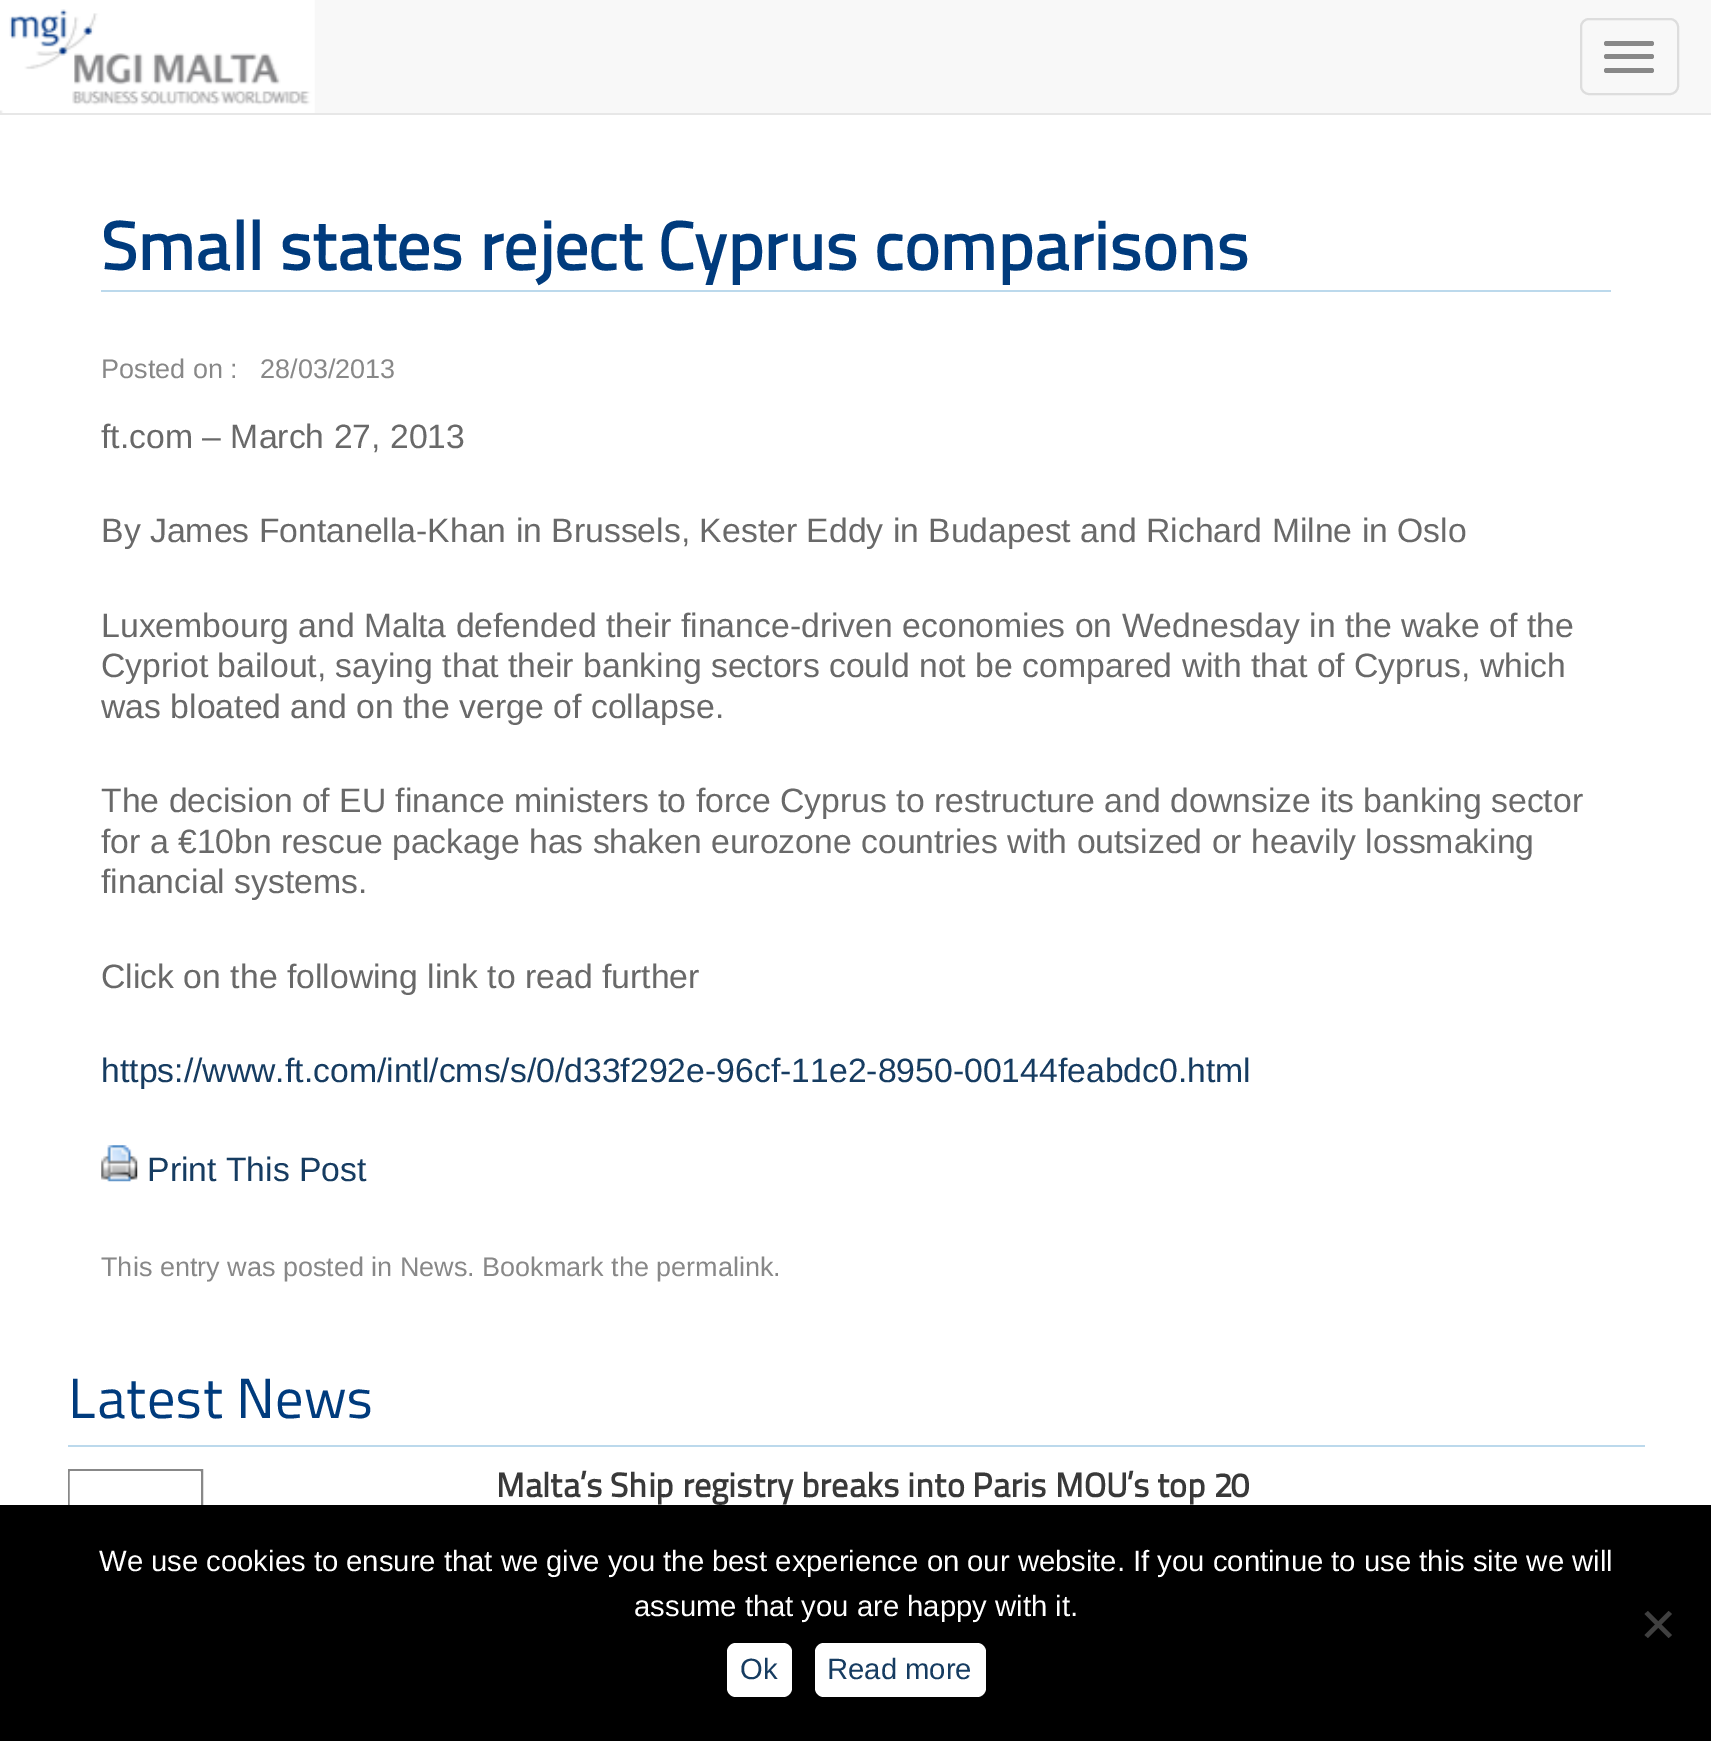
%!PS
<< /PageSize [1711 1741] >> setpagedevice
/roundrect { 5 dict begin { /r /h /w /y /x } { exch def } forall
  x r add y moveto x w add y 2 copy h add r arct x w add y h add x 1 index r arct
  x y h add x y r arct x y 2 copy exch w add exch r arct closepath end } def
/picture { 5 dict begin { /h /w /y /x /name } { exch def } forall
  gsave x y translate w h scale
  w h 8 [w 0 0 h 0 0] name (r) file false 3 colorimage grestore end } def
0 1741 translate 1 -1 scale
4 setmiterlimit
1 setgray
0 0 1711 1741 rectfill
0.973 setgray
0 0 1711 113 rectfill
0.906 setgray
0 113 1711 2 rectfill
(img1.rgb) 0 0 315 113 picture
0.867 setgray
2 setlinewidth
1581 19 97 75 8 roundrect stroke
0.533 setgray
1604 41 50 5 2.5 roundrect fill
1604 54 50 5 2.5 roundrect fill
1604 68 50 5 2.5 roundrect fill
0.737 0.851 0.925 setrgbcolor
101 290 1510 2 rectfill
/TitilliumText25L-Bold [67.5 0 0 -67.5 0 0] selectfont
0 0.231 0.49 setrgbcolor
101 270 moveto (Small states reject Cyprus comparisons) show
/LiberationSans-Regular [27 0 0 -27 0 0] selectfont
0.533 setgray
101 378 moveto (Posted on :) show
260 378 moveto (28/03/2013) show
/LiberationSans-Regular [33.75 0 0 -33.75 0 0] selectfont
0.412 setgray
101 448 moveto (ft.com – March 27, 2013) show
101 542 moveto (By James Fontanella-Khan in Brussels, Kester Eddy in Budapest and Richard Milne in Oslo) show
101 637 moveto (Luxembourg and Malta defended their finance-driven economies on Wednesday in the wake of the) show
101 677 moveto (Cypriot bailout, saying that their banking sectors could not be compared with that of Cyprus, which) show
101 718 moveto (was bloated and on the verge of collapse.) show
101 812 moveto (The decision of EU finance ministers to force Cyprus to restructure and downsize its banking sector) show
101 853 moveto (for a €10bn rescue package has shaken eurozone countries with outsized or heavily lossmaking) show
101 893 moveto (financial systems.) show
101 988 moveto (Click on the following link to read further) show
0.086 0.235 0.38 setrgbcolor
101 1082 moveto (https://www.ft.com/intl/cms/s/0/d33f292e-96cf-11e2-8950-00144feabdc0.html) show
(img2.rgb) 101 1145 37 37 picture
147 1181 moveto (Print This Post) show
/LiberationSans-Regular [27 0 0 -27 0 0] selectfont
0.533 setgray
101 1276 moveto (This entry was posted in News. Bookmark the permalink.) show
0.737 0.851 0.925 setrgbcolor
68 1445 1577 2 rectfill
/TitilliumText25L-Regular [56.25 0 0 -56.25 0 0] selectfont
0 0.231 0.49 setrgbcolor
68 1418 moveto (Latest News) show
0.533 setgray
69 1470 133 133 rectstroke
(img3.rgb) 69 1471 131 34 picture
/TitilliumText25L-Bold [33.75 0 0 -33.75 0 0] selectfont
0.224 setgray
496 1497 moveto (Malta’s Ship registry breaks into Paris MOU’s top 20) show
0 setgray
0 1505 1711 236 rectfill
/LiberationSans-Regular [29.25 0 0 -29.25 0 0] selectfont
1 setgray
99 1571 moveto (We use cookies to ensure that we give you the best experience on our website. If you continue to use this site we will) show
634 1616 moveto (assume that you are happy with it.) show
0.251 setgray
newpath 1668.5 1611 moveto 1672 1614 lineto 1648 1638 lineto 1644.5 1635 lineto closepath fill
newpath 1644.5 1614 moveto 1648 1611 lineto 1672 1635 lineto 1668.5 1638 lineto closepath fill
1 setgray
727 1643 65 54 9 roundrect fill
0.086 0.235 0.38 setrgbcolor
740 1679 moveto (Ok) show
1 setgray
815 1643 171 54 9 roundrect fill
0.086 0.235 0.38 setrgbcolor
827 1679 moveto (Read more) show
showpage
